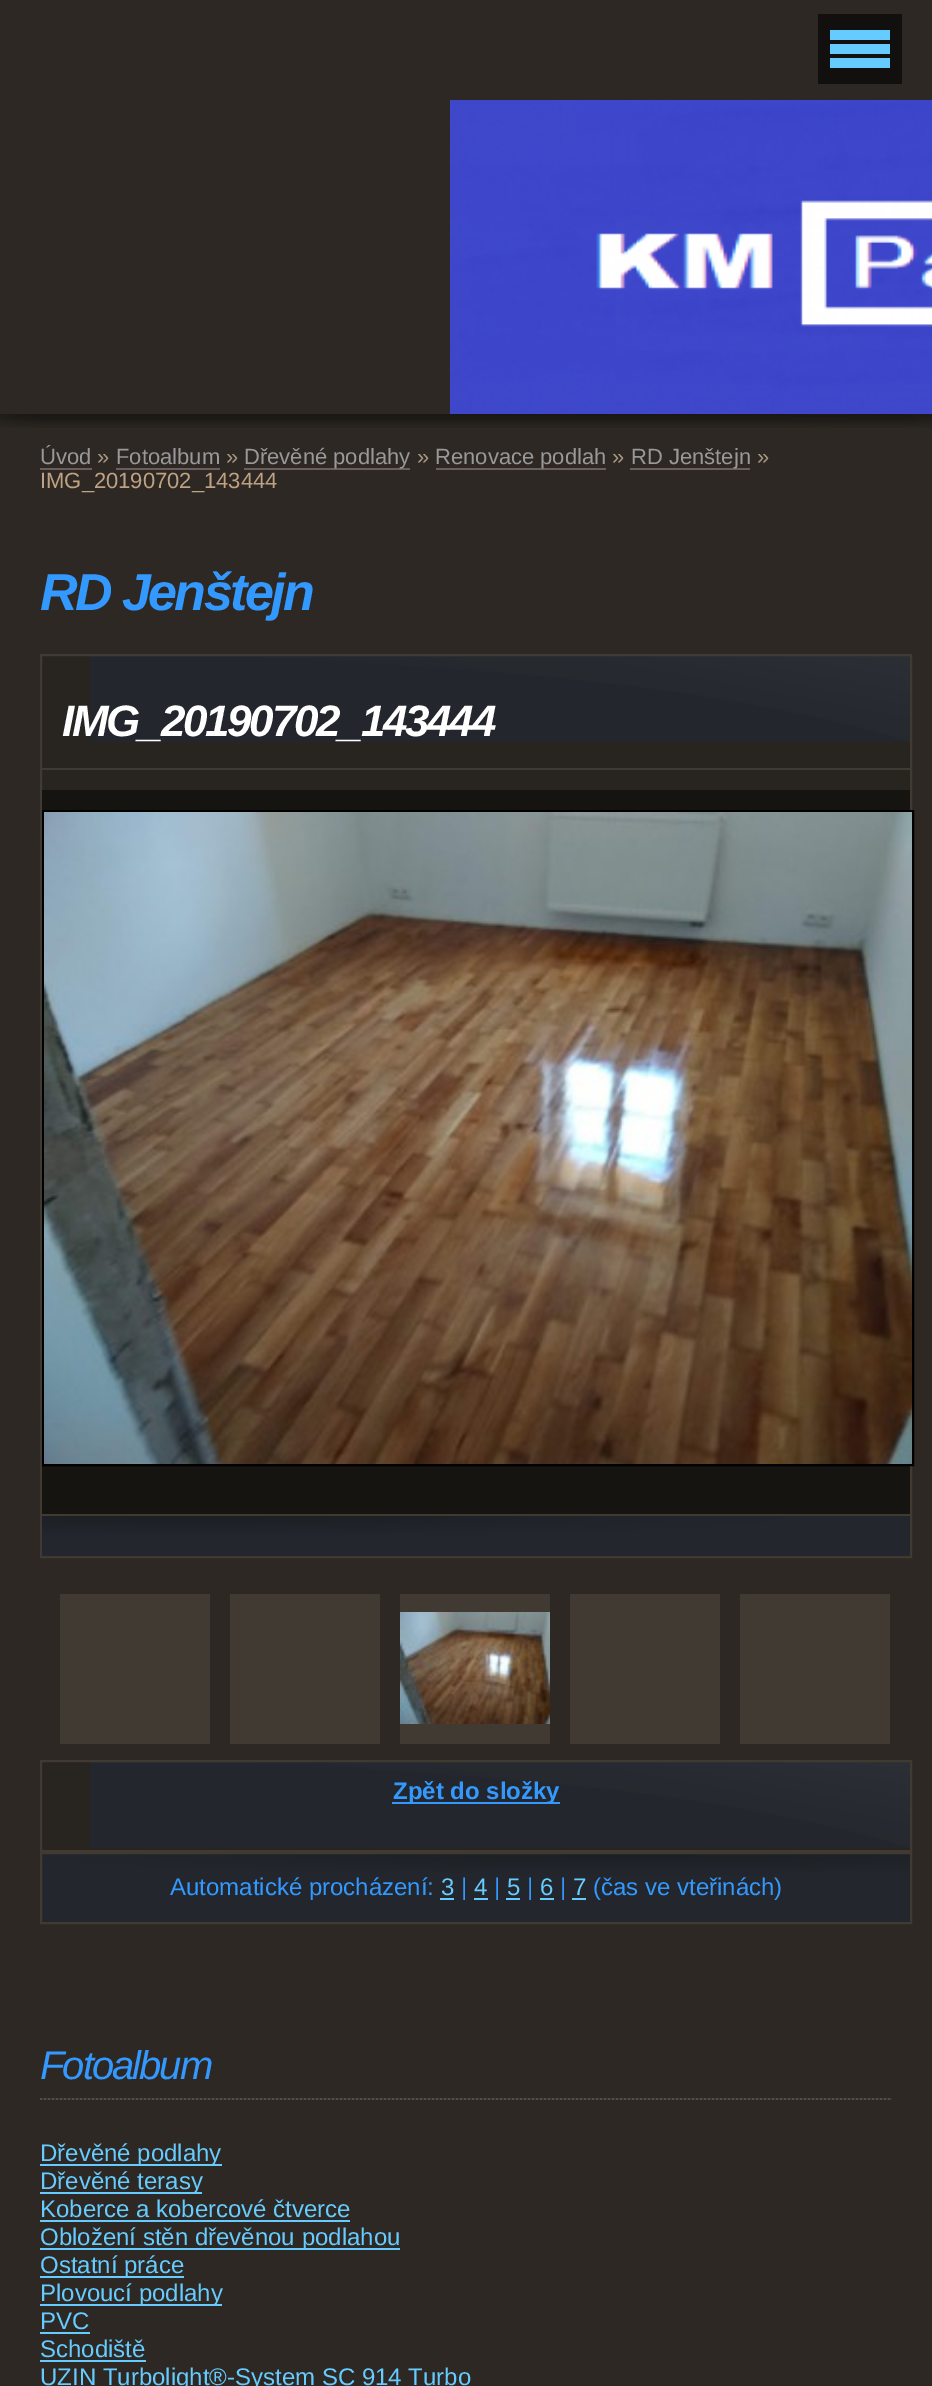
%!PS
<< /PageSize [932 2386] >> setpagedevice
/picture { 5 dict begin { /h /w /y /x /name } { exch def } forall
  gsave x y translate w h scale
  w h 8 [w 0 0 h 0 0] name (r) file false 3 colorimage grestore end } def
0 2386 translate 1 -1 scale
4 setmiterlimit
0.176 0.157 0.137 setrgbcolor
0 0 932 2386 rectfill
0.071 0.063 0.055 setrgbcolor
818 14 84 70 rectfill
0.4 0.8 1 setrgbcolor
830 30 60 10 rectfill
830 44 60 10 rectfill
830 58 60 10 rectfill
(img1.rgb) 450 100 482 314 picture
(img2.rgb) 0 414 932 14 picture
/LiberationSans-Regular [22 0 0 -22 0 0] selectfont
0.6 setgray
40 464 moveto (Úvod) show
0.42 0.369 0.361 setrgbcolor
40 468 52 2 rectfill
0.663 0.6 0.522 setrgbcolor
97 464 moveto (») show
0.6 setgray
116 464 moveto (Fotoalbum) show
0.42 0.369 0.361 setrgbcolor
116 468 104 2 rectfill
0.663 0.6 0.522 setrgbcolor
226 464 moveto (») show
0.42 0.369 0.361 setrgbcolor
244 468 166 2 rectfill
0.6 setgray
244 464 moveto (Dřevěné podlahy) show
0.663 0.6 0.522 setrgbcolor
417 464 moveto (») show
0.42 0.369 0.361 setrgbcolor
436 468 170 2 rectfill
0.6 setgray
435 464 moveto (Renovace podlah) show
0.663 0.6 0.522 setrgbcolor
612 464 moveto (») show
0.42 0.369 0.361 setrgbcolor
630 468 120 2 rectfill
0.6 setgray
631 464 moveto (RD Jenštejn) show
0.663 0.6 0.522 setrgbcolor
757 464 moveto (») show
0.749 0.635 0.514 setrgbcolor
40 488 moveto (IMG_20190702_143444) show
/LiberationSans-BoldItalic [52 0 0 -52 0 0] selectfont
0.2 0.6 1 setrgbcolor
40 610 moveto -2.6 0 (RD Jenštejn) ashow
0.157 0.141 0.122 setrgbcolor
42 656 868 134 rectfill
(img3.rgb) 90 656 820 86 picture
0.255 0.227 0.2 setrgbcolor
2 setlinewidth
41 655 870 902 rectstroke
42 768 868 2 rectfill
/LiberationSans-BoldItalic [44 0 0 -44 0 0] selectfont
1 setgray
62 736 moveto -2.25 0 (IMG_20190702_143444) ashow
0.086 0.078 0.067 setrgbcolor
42 790 868 724 rectfill
0.255 0.227 0.2 setrgbcolor
42 1514 868 2 rectfill
0 setgray
43 811 870 654 rectstroke
(img4.rgb) 44 812 868 652 picture
(img5.rgb) 42 1516 868 40 picture
0.255 0.227 0.2 setrgbcolor
60 1594 150 150 rectfill
230 1594 150 150 rectfill
400 1594 150 150 rectfill
(img6.rgb) 400 1612 150 112 picture
570 1594 150 150 rectfill
740 1594 150 150 rectfill
0.157 0.141 0.122 setrgbcolor
42 1762 868 88 rectfill
(img3.rgb) 90 1762 820 86 picture
0.255 0.227 0.2 setrgbcolor
41 1761 870 90 rectstroke
0.2 0.6 1 setrgbcolor
392 1802 168 2 rectfill
/LiberationSans-Bold [24 0 0 -24 0 0] selectfont
393 1799 moveto (Zpět do složky) show
(img7.rgb) 42 1854 868 68 picture
0.255 0.227 0.2 setrgbcolor
41 1853 870 70 rectstroke
/LiberationSans-Regular [24 0 0 -24 0 0] selectfont
0.2 0.6 1 setrgbcolor
170 1895 moveto (Automatické procházení:) show
0.4 0.8 1 setrgbcolor
441 1895 moveto (3) show
440 1898 14 2 rectfill
0.2 0.6 1 setrgbcolor
461 1895 moveto (|) show
0.4 0.8 1 setrgbcolor
474 1895 moveto (4) show
474 1898 14 2 rectfill
0.2 0.6 1 setrgbcolor
494 1895 moveto (|) show
0.4 0.8 1 setrgbcolor
507 1895 moveto (5) show
506 1898 14 2 rectfill
0.2 0.6 1 setrgbcolor
527 1895 moveto (|) show
0.4 0.8 1 setrgbcolor
540 1895 moveto (6) show
540 1898 14 2 rectfill
0.2 0.6 1 setrgbcolor
560 1895 moveto (|) show
0.4 0.8 1 setrgbcolor
573 1895 moveto (7) show
572 1898 14 2 rectfill
0.2 0.6 1 setrgbcolor
593 1895 moveto (\(čas ve vteřinách\)) show
(img8.rgb) 40 2098 852 2 picture
/LiberationSans-Italic [40 0 0 -40 0 0] selectfont
40 2079 moveto -2 0 (Fotoalbum) ashow
0.4 0.8 1 setrgbcolor
40 2164 182 2 rectfill
/LiberationSans-Regular [24 0 0 -24 0 0] selectfont
40 2161 moveto (Dřevěné podlahy) show
40 2192 162 2 rectfill
40 2189 moveto (Dřevěné terasy) show
40 2217 moveto (Koberce a kobercové čtverce) show
40 2220 310 2 rectfill
40 2248 360 2 rectfill
40 2245 moveto (Obložení stěn dřevěnou podlahou) show
40 2276 144 2 rectfill
40 2273 moveto (Ostatní práce) show
40 2304 182 2 rectfill
40 2301 moveto (Plovoucí podlahy) show
40 2329 moveto (PVC) show
40 2332 50 2 rectfill
40 2357 moveto (Schodiště) show
40 2360 106 2 rectfill
40 2385 moveto (UZIN Turbolight®-System SC 914 Turbo) show
showpage
